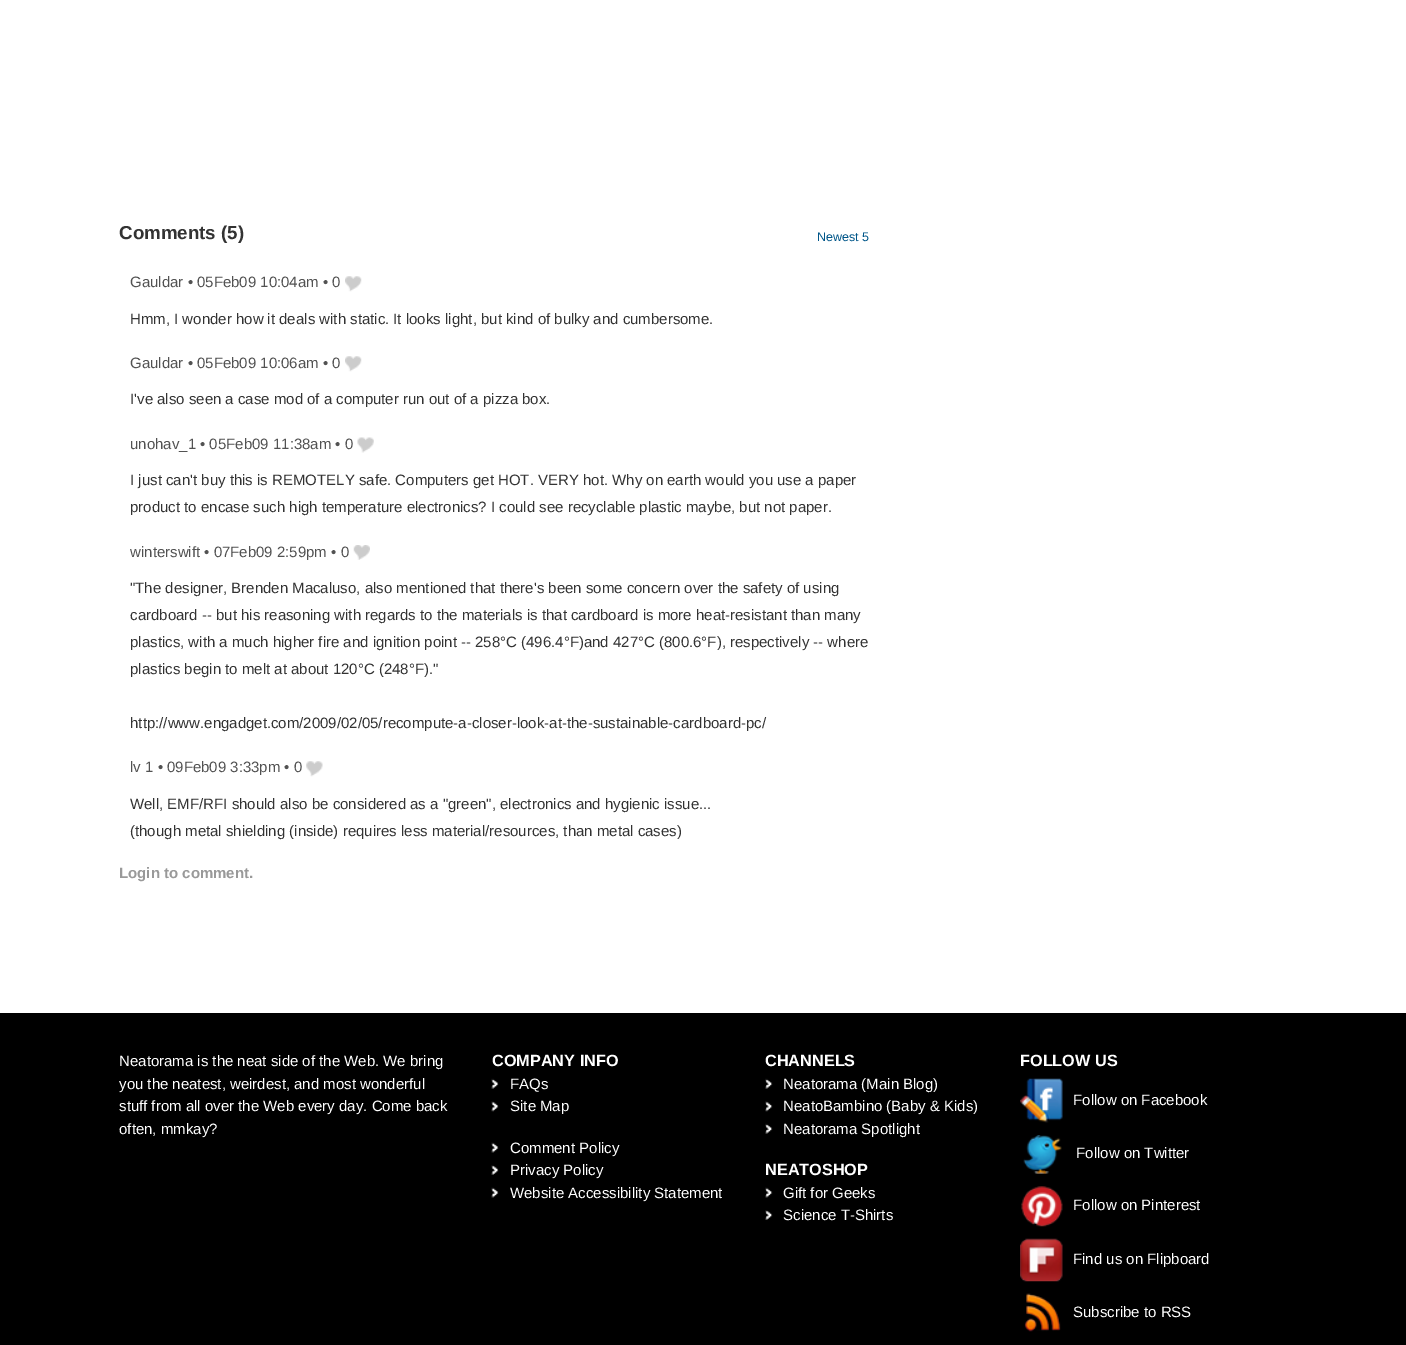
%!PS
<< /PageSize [1406 1345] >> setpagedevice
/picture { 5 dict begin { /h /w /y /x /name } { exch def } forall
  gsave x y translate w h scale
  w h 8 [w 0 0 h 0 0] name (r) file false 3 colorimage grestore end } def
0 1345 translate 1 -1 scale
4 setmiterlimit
1 setgray
0 0 1406 1345 rectfill
/LiberationSans-Bold [18.75 0 0 -18.75 0 0] selectfont
0.2 setgray
119 239 moveto (Comments \(5\)) show
/LiberationSans-Regular [12.5 0 0 -12.5 0 0] selectfont
0 0.337 0.537 setrgbcolor
817 241 moveto (Newest 5) show
/LiberationSans-Regular [15 0 0 -15 0 0] selectfont
0.322 setgray
130 287 moveto (Gauldar • 05Feb09 10:04am • 0) show
(img1.rgb) 345 276 17 16 picture
0.2 setgray
130 324 moveto (Hmm, I wonder how it deals with static. It looks light, but kind of bulky and cumbersome.) show
0.322 setgray
130 368 moveto (Gauldar • 05Feb09 10:06am • 0) show
(img1.rgb) 345 356 17 16 picture
0.2 setgray
130 404 moveto (I've also seen a case mod of a computer run out of a pizza box.) show
0.322 setgray
130 449 moveto (unohav_1 • 05Feb09 11:38am • 0) show
(img2.rgb) 357 437 17 16 picture
0.2 setgray
130 485 moveto (I just can't buy this is REMOTELY safe. Computers get HOT. VERY hot. Why on earth would you use a paper) show
130 512 moveto (product to encase such high temperature electronics? I could see recyclable plastic maybe, but not paper.) show
0.322 setgray
130 557 moveto (winterswift • 07Feb09 2:59pm • 0) show
(img3.rgb) 353 545 17 15 picture
0.2 setgray
130 593 moveto ("The designer, Brenden Macaluso, also mentioned that there's been some concern over the safety of using) show
130 620 moveto (cardboard -- but his reasoning with regards to the materials is that cardboard is more heat-resistant than many) show
130 647 moveto (plastics, with a much higher fire and ignition point -- 258°C \(496.4°F\)and 427°C \(800.6°F\), respectively -- where) show
130 674 moveto (plastics begin to melt at about 120°C \(248°F\).") show
130 728 moveto (http://www.engadget.com/2009/02/05/recompute-a-closer-look-at-the-sustainable-cardboard-pc/) show
0.322 setgray
130 772 moveto (lv 1 • 09Feb09 3:33pm • 0) show
(img4.rgb) 306 761 17 16 picture
0.2 setgray
130 809 moveto (Well, EMF/RFI should also be considered as a "green", electronics and hygienic issue...) show
130 836 moveto (\(though metal shielding \(inside\) requires less material/resources, than metal cases\)) show
/LiberationSans-Bold [15 0 0 -15 0 0] selectfont
0.6 setgray
119 878 moveto (Login to comment.) show
0 setgray
0 1013 1406 332 rectfill
/LiberationSans-Regular [15 0 0 -15 0 0] selectfont
1 setgray
119 1066 moveto (Neatorama is the neat side of the Web. We bring) show
119 1089 moveto (you the neatest, weirdest, and most wonderful) show
119 1111 moveto (stuff from all over the Web every day. Come back) show
119 1134 moveto (often, mmkay?) show
/LiberationSans-Bold [16.25 0 0 -16.25 0 0] selectfont
492 1066 moveto (COMPANY INFO) show
(img5.rgb) 491 1078 8 11 picture
/LiberationSans-Regular [15 0 0 -15 0 0] selectfont
510 1089 moveto (FAQs) show
(img6.rgb) 491 1101 8 11 picture
510 1111 moveto (Site Map) show
(img7.rgb) 491 1142 8 11 picture
510 1153 moveto (Comment Policy) show
(img8.rgb) 491 1165 8 10 picture
510 1175 moveto (Privacy Policy) show
(img7.rgb) 491 1187 8 11 picture
510 1198 moveto (Website Accessibility Statement) show
/LiberationSans-Bold [16.25 0 0 -16.25 0 0] selectfont
765 1066 moveto (CHANNELS) show
(img9.rgb) 765 1078 8 11 picture
/LiberationSans-Regular [15 0 0 -15 0 0] selectfont
783 1089 moveto (Neatorama \(Main Blog\)) show
(img10.rgb) 765 1101 8 11 picture
783 1111 moveto (NeatoBambino \(Baby & Kids\)) show
(img9.rgb) 765 1123 8 11 picture
783 1134 moveto (Neatorama Spotlight) show
/LiberationSans-Bold [16.25 0 0 -16.25 0 0] selectfont
765 1175 moveto (NEATOSHOP) show
(img11.rgb) 765 1187 8 11 picture
/LiberationSans-Regular [15 0 0 -15 0 0] selectfont
783 1198 moveto (Gift for Geeks) show
(img12.rgb) 765 1210 8 10 picture
783 1220 moveto (Science T-Shirts) show
/LiberationSans-Bold [16.25 0 0 -16.25 0 0] selectfont
1020 1066 moveto (FOLLOW US) show
(img13.rgb) 1020 1078 43 45 picture
/LiberationSans-Regular [15 0 0 -15 0 0] selectfont
1073 1105 moveto (Follow on Facebook) show
(img14.rgb) 1023 1135 39 39 picture
1076 1158 moveto (Follow on Twitter) show
(img15.rgb) 1021 1186 42 41 picture
1073 1210 moveto (Follow on Pinterest) show
(img16.rgb) 1020 1238 43 44 picture
1073 1264 moveto (Find us on Flipboard) show
(img17.rgb) 1024 1293 37 39 picture
1073 1317 moveto (Subscribe to RSS) show
showpage
